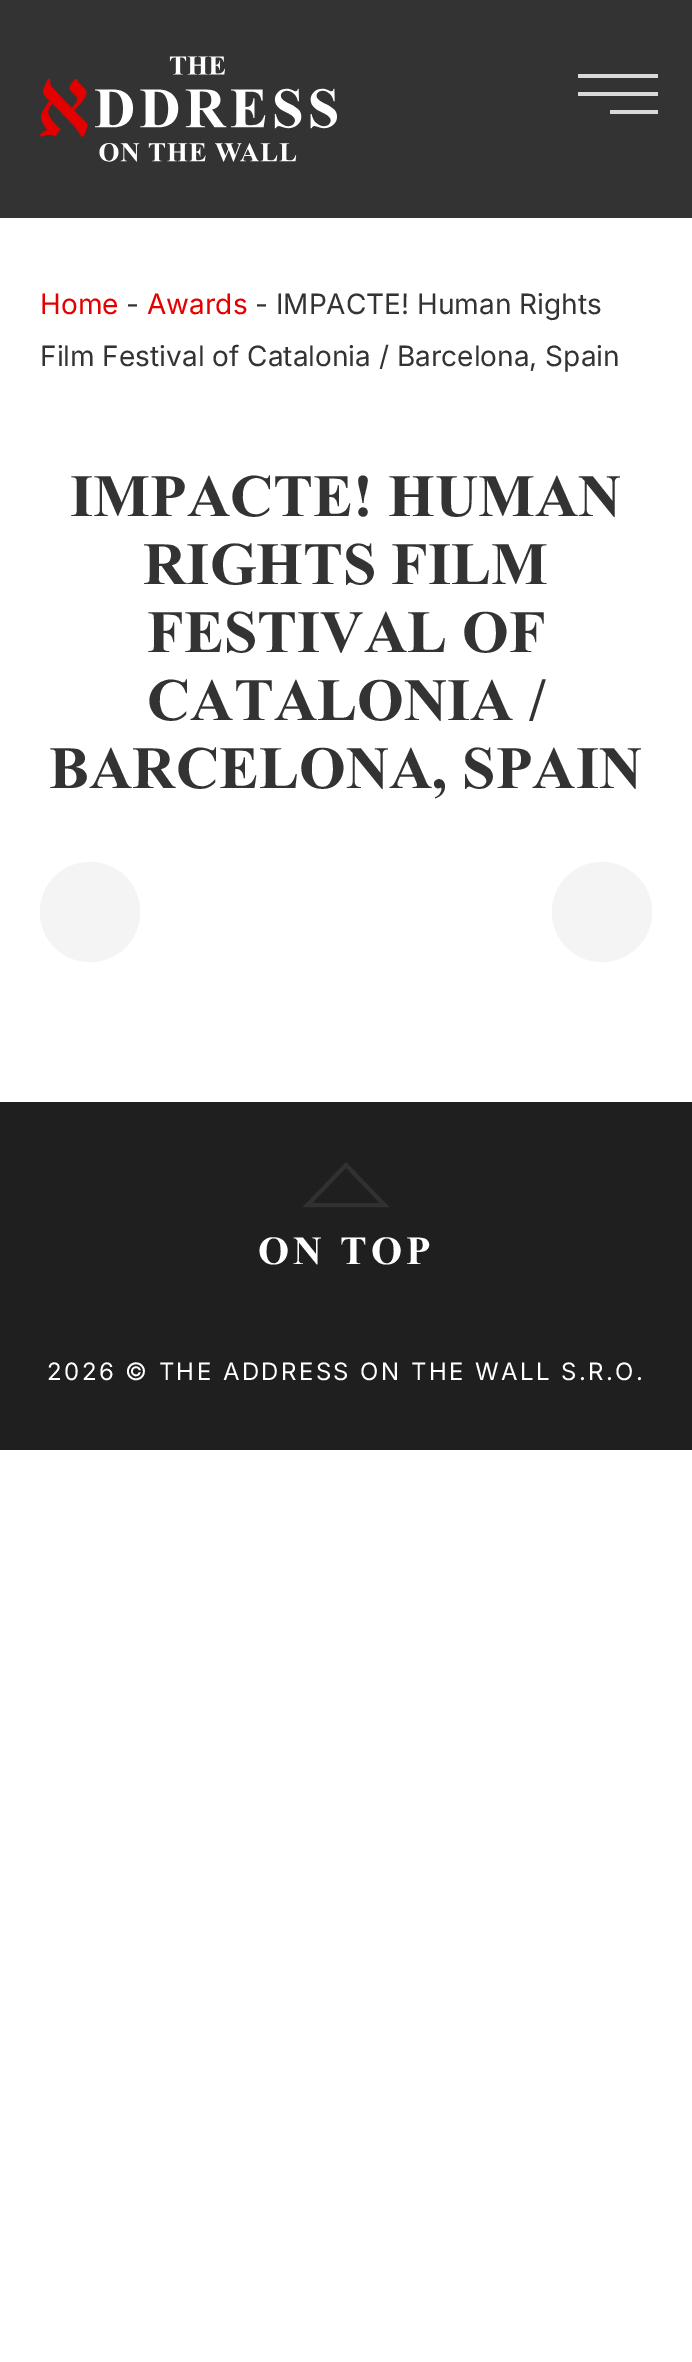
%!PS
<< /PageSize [692 2362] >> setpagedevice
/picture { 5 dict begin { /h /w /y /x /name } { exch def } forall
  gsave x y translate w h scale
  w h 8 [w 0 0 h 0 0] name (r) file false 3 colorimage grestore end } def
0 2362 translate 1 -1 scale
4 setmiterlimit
1 setgray
0 0 692 2362 rectfill
0.2 setgray
0 0 692 218 rectfill
(img1.rgb) 40 56 297 106 picture
0.851 setgray
578 74 80 4 rectfill
578 92 80 4 rectfill
610 110 48 4 rectfill
/Inter-Regular [28 0 0 -28 0 0] selectfont
0.898 0 0 setrgbcolor
40 314 moveto (Home) show
0.2 setgray
126 314 moveto (-) show
0.898 0 0 setrgbcolor
147 314 moveto (Awards) show
0.2 setgray
255 314 moveto (- IMPACTE! Human Rights) show
40 366 moveto (Film Festival of Catalonia / Barcelona, Spain) show
/TimesNewRoman-Bold [60 0 0 -60 0 0] selectfont
70 516 moveto (IMPACTE! HUMAN) show
143 584 moveto (RIGHTS FILM) show
147 652 moveto (FESTIVAL OF) show
147 720 moveto (CATALONIA /) show
49 788 moveto (BARCELONA, SPAIN) show
0.957 setgray
newpath 90 962 moveto 62 962 40 940 40 912 curveto 40 884 62 862 90 862 curveto 118 862 140 884 140 912 curveto 140 940 118 962 90 962 curveto closepath fill
newpath 602 912 50 0 360 arc closepath fill
0.125 0.122 0.122 setrgbcolor
0 1102 692 348 rectfill
0.196 0.192 0.192 setrgbcolor
4 setlinewidth
newpath 307.5 1205 moveto 346 1165 lineto 384.5 1205 lineto closepath stroke
/TimesNewRoman-Bold [40 0 0 -40 0 0] selectfont
1 setgray
258 1264 moveto 4 0 (ON TOP) ashow
/Inter-Regular [24 0 0 -24 0 0] selectfont
47 1380 moveto 2.4 0 (2026 © THE ADDRESS ON THE WALL S.R.O.) ashow
showpage
